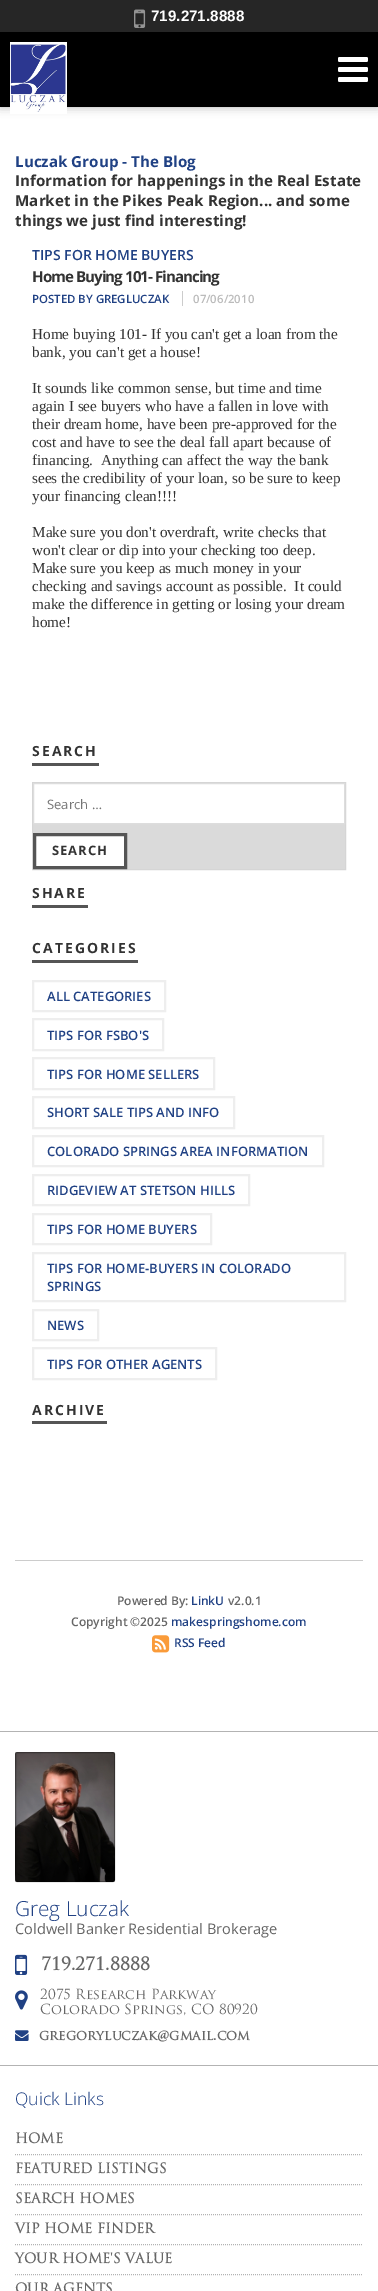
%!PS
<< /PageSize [378 2291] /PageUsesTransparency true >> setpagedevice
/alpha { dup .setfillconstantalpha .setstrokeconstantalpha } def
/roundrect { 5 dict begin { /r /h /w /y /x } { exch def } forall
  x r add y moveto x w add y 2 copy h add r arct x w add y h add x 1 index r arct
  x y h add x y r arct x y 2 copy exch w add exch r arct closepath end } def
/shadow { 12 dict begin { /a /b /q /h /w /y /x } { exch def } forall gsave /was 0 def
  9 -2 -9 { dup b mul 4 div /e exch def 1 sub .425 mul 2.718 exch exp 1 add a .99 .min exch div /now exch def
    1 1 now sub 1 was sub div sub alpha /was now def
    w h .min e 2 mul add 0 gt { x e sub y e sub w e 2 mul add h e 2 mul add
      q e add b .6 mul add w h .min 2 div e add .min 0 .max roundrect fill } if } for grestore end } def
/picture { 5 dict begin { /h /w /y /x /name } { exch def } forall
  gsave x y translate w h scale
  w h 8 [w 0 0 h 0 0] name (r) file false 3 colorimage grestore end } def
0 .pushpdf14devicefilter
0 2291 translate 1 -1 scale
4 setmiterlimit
1 setgray
0 0 378 2291 rectfill
0 setgray
0 0 378 107 0 5 0.3 shadow
0.149 setgray
0 0 378 32 rectfill
(img1.rgb) 134 9 12 19 picture
/LiberationSans-Bold [15.2 0 0 -15.2 0 0] selectfont
1 setgray
151 21 moveto (719.271.8888) show
0 setgray
0 32 378 75 rectfill
(img2.rgb) 10 42 57 72 picture
(img3.rgb) 338 57 30 25 picture
/OpenSans-Bold [15.2 0 0 -15.2 0 0] selectfont
0.125 0.255 0.518 setrgbcolor
15 167 moveto (Luczak Group - The Blog) show
0.2 setgray
15 186 moveto (Information for happenings in the Real Estate) show
15 206 moveto (Market in the Pikes Peak Region... and some) show
15 226 moveto (things we just find interesting!) show
/OpenSans-SemiBold [14 0 0 -14 0 0] selectfont
0.125 0.255 0.518 setrgbcolor
32 260 moveto (TIPS FOR HOME BUYERS) show
/OpenSans-Bold [15.2 0 0 -15.2 0 0] selectfont
0.2 setgray
32 282 moveto -1 0 (Home Buying 101- Financing) ashow
/OpenSans-SemiBold [11.4 0 0 -11.4 0 0] selectfont
0.125 0.255 0.518 setrgbcolor
32 303 moveto (POSTED BY GREGLUCZAK) show
0.8 setgray
182 291 1 15 rectfill
0.733 setgray
193 303 moveto (07/06/2010) show
/LiberationSerif-Regular [15.2 0 0 -15.2 0 0] selectfont
0.2 setgray
32 339 moveto (Home buying 101- If you can't get a loan from the) show
32 357 moveto (bank, you can't get a house!) show
32 393 moveto (It sounds like common sense, but time and time) show
32 411 moveto (again I see buyers who have a fallen in love with) show
32 429 moveto (their dream home, have been pre-approved for the) show
32 447 moveto (cost and have to see the deal fall apart because of) show
32 465 moveto (financing.  Anything can affect the way the bank) show
32 483 moveto (sees the credibility of your loan, so be sure to keep) show
32 501 moveto (your financing clean!!!!) show
32 537 moveto (Make sure you don't overdraft, write checks that) show
32 555 moveto (won't clear or dip into your checking too deep.) show
32 573 moveto (Make sure you keep as much money in your) show
32 591 moveto (checking and savings account as possible.  It could) show
32 609 moveto (make the difference in getting or losing your dream) show
32 627 moveto (home!) show
0.333 setgray
32 763 67 3 rectfill
/OpenSans-Bold [14 0 0 -14 0 0] selectfont
0.2 setgray
32 756 moveto 2 0 (SEARCH) ashow
0.855 setgray
33 824 312 45 rectfill
0.835 setgray
32.5 782.5 313 87 rectstroke
0.867 setgray
33.5 783.5 311 40 rectstroke
/OpenSans-Regular [13 0 0 -13 0 0] selectfont
0.459 setgray
47 809 moveto (Search …) show
1 setgray
newpath 34.5 834.5 moveto 125.5 834.5 lineto 125.5 867.5 lineto 34.5 867.5 lineto closepath gsave fill grestore
0.333 setgray
3 setlinewidth
stroke
/OpenSans-Bold [13 0 0 -13 0 0] selectfont
0.2 setgray
52 855 moveto 1 0 (SEARCH) ashow
0.333 setgray
32 905 56 3 rectfill
/OpenSans-Bold [14 0 0 -14 0 0] selectfont
0.2 setgray
32 898 moveto 2 0 (SHARE) ashow
0.333 setgray
32 960 106 3 rectfill
0.2 setgray
32 953 moveto 2 0 (CATEGORIES) ashow
0.933 setgray
2 setlinewidth
33 981 132 30 rectstroke
/OpenSans-SemiBold [13 0 0 -13 0 0] selectfont
0.125 0.255 0.518 setrgbcolor
47 1001 moveto (ALL CATEGORIES) show
0.933 setgray
33 1019 130 31 rectstroke
0.125 0.255 0.518 setrgbcolor
47 1040 moveto (TIPS FOR FSBO'S) show
0.933 setgray
33 1058 181 31 rectstroke
0.125 0.255 0.518 setrgbcolor
47 1079 moveto (TIPS FOR HOME SELLERS) show
0.933 setgray
33 1097 201 31 rectstroke
0.125 0.255 0.518 setrgbcolor
47 1117 moveto (SHORT SALE TIPS AND INFO) show
0.933 setgray
33 1136 290 30 rectstroke
0.125 0.255 0.518 setrgbcolor
47 1156 moveto (COLORADO SPRINGS AREA INFORMATION) show
0.933 setgray
33 1175 216 30 rectstroke
0.125 0.255 0.518 setrgbcolor
47 1195 moveto (RIDGEVIEW AT STETSON HILLS) show
0.933 setgray
33 1214 178 30 rectstroke
0.125 0.255 0.518 setrgbcolor
47 1234 moveto (TIPS FOR HOME BUYERS) show
0.933 setgray
33 1253 312 48 rectstroke
0.125 0.255 0.518 setrgbcolor
47 1273 moveto (TIPS FOR HOME-BUYERS IN COLORADO) show
47 1291 moveto (SPRINGS) show
0.933 setgray
33 1310 65 30 rectstroke
0.125 0.255 0.518 setrgbcolor
47 1330 moveto (NEWS) show
0.933 setgray
33 1348 183 31 rectstroke
0.125 0.255 0.518 setrgbcolor
47 1369 moveto (TIPS FOR OTHER AGENTS) show
0.333 setgray
32 1421 75 3 rectfill
/OpenSans-Bold [14 0 0 -14 0 0] selectfont
0.2 setgray
32 1415 moveto 2 0 (ARCHIVE) ashow
0.8 setgray
15 1560 348 1 rectfill
/OpenSans-SemiBold [12 0 0 -12 0 0] selectfont
0.4 setgray
117 1605 moveto (Powered By:) show
0.125 0.255 0.518 setrgbcolor
191 1605 moveto (LinkU) show
0.4 setgray
228 1605 moveto (v2.0.1) show
71 1626 moveto (Copyright ©2025) show
0.125 0.255 0.518 setrgbcolor
171 1626 moveto (makespringshome.com) show
(img4.rgb) 152 1635 18 18 picture
174 1647 moveto (RSS Feed) show
0.702 setgray
0 1731 378 1 rectfill
(img5.rgb) 15 1752 100 130 picture
0.3 alpha
0 setgray
1 setlinewidth
15.5 1752.5 99 129 1.5 roundrect stroke
/OpenSans-Light [20.75 0 0 -20.75 0 0] selectfont
1 alpha
0.125 0.255 0.518 setrgbcolor
15 1916 moveto (Greg Luczak) show
/OpenSans-Regular [14.6 0 0 -14.6 0 0] selectfont
0.4 setgray
15 1934 moveto (Coldwell Banker Residential Brokerage) show
(img6.rgb) 15 1954 13 21 picture
/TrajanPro-Bold [17.5 0 0 -17.5 0 0] selectfont
41 1970 moveto (719.271.8888) show
(img7.rgb) 15 1990 13 20 picture
/TrajanPro-Regular [13.6 0 0 -13.6 0 0] selectfont
40 1999 moveto (2075 Research Parkway) show
40 2014 moveto (Colorado Springs, CO 80920) show
(img8.rgb) 15 2030 14 11 picture
/TrajanPro-Bold [13.6 0 0 -13.6 0 0] selectfont
39 2040 moveto (gregoryluczak@gmail.com) show
0.702 setgray
0 2065 378 1 rectfill
/OpenSans-Light [17.5 0 0 -17.5 0 0] selectfont
0.125 0.255 0.518 setrgbcolor
15 2105 moveto (Quick Links) show
/TrajanPro-Bold [13.6 0 0 -13.6 0 0] selectfont
0.4 setgray
15 2143 moveto (HOME) show
0.702 setgray
[1 1] 0 setdash
newpath 15 2154.5 moveto 363 2154.5 lineto stroke
0.4 setgray
15 2173 moveto (FEATURED LISTINGS) show
0.702 setgray
newpath 15 2184.5 moveto 363 2184.5 lineto stroke
0.4 setgray
15 2203 moveto (SEARCH HOMES) show
0.702 setgray
newpath 15 2214.5 moveto 363 2214.5 lineto stroke
0.4 setgray
15 2233 moveto (VIP HOME FINDER) show
0.702 setgray
newpath 15 2244.5 moveto 363 2244.5 lineto stroke
0.4 setgray
15 2263 moveto (YOUR HOME'S VALUE) show
0.702 setgray
newpath 15 2274.5 moveto 363 2274.5 lineto stroke
0.4 setgray
15 2293 moveto (OUR AGENTS) show
.poppdf14devicefilter showpage
